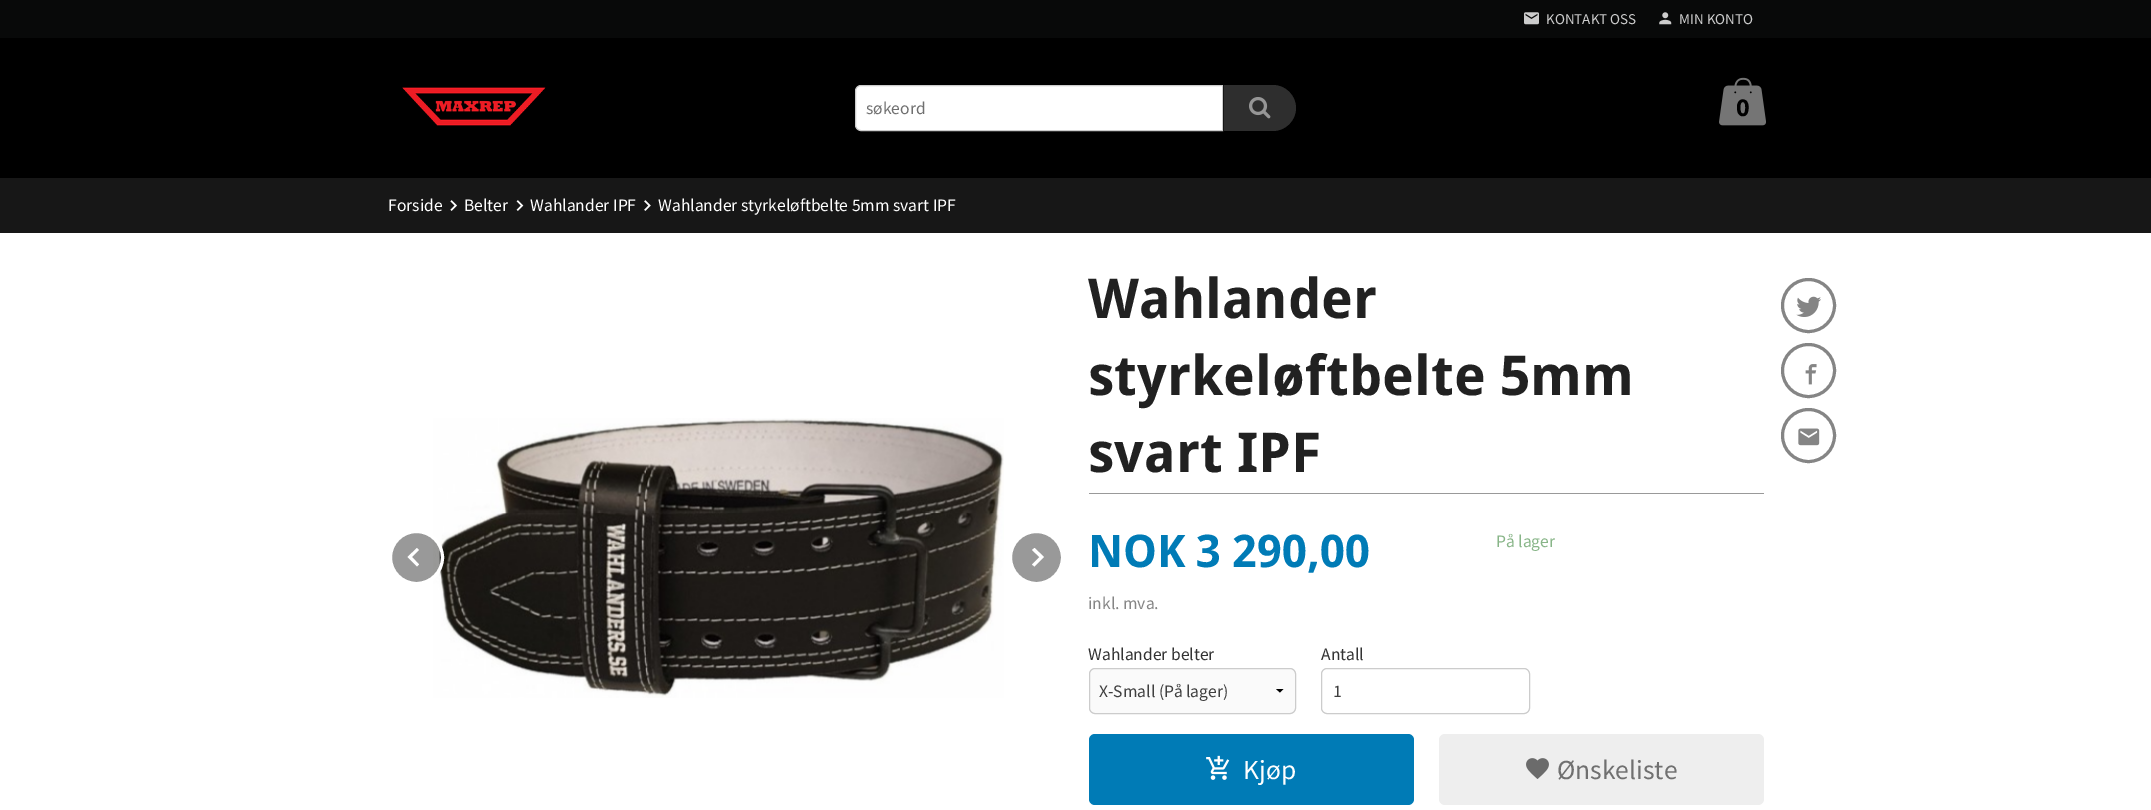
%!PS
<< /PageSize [2151 810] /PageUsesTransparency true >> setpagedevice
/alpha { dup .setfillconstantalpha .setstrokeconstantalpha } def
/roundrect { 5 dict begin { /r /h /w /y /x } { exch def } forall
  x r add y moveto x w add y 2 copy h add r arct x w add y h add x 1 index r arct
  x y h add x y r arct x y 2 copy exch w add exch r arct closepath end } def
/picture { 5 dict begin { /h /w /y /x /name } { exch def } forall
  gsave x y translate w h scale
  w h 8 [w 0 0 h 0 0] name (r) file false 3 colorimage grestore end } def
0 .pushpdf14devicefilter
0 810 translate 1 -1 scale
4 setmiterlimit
0.031 0.035 0.035 setrgbcolor
0 0 2151 810 rectfill
(img1.rgb) 1524 12 15 13 picture
/SourceSansPro-Regular [15 0 0 -15 0 0] selectfont
0.8 setgray
1546 24 moveto (KONTAKT OSS) show
(img2.rgb) 1659 12 13 13 picture
1679 24 moveto (MIN KONTO) show
0 setgray
0 38 2151 140 rectfill
(img3.rgb) 402 87 144 39 picture
1 setgray
newpath 861 85.5 moveto 1222.5 85.5 lineto 1222.5 130.5 lineto 861 130.5 lineto 858 130.5 855.5 128 855.5 125 curveto 855.5 91 lineto 855.5 88 858 85.5 861 85.5 curveto closepath gsave fill grestore
0.8 setgray
stroke
/SourceSansPro-Regular [17.5 0 0 -17.5 0 0] selectfont
0.439 setgray
866 114 moveto (søkeord) show
0.18 setgray
newpath 1223 85 moveto 1273 85 lineto 1285.5 85 1296 95.5 1296 108 curveto 1296 120.5 1285.5 131 1273 131 curveto 1223 131 lineto closepath fill
0.086 setgray
1223 85 1 46 rectfill
(img4.rgb) 1249 97 22 22 picture
(img5.rgb) 1719 77 47 49 picture
/SourceSansPro-Bold [26 0 0 -26 0 0] selectfont
0 setgray
1736 116 moveto (0) show
0.09 setgray
0 178 2151 55 rectfill
/SourceSansPro-Regular [17.5 0 0 -17.5 0 0] selectfont
1 setgray
388 211 moveto (Forside) show
(img6.rgb) 450 200 7 11 picture
464 211 moveto (Belter) show
(img7.rgb) 516 200 8 11 picture
530 211 moveto (Wahlander IPF) show
(img8.rgb) 644 200 7 11 picture
658 211 moveto (Wahlander styrkeløftbelte 5mm svart IPF) show
0 233 2151 577 rectfill
(img9.rgb) 433 418 571 280 picture
0.4 alpha
0 setgray
newpath 416.5 557.5 26 0 360 arc closepath fill
1 alpha
1 setgray
3 setlinewidth
newpath 416.5 557.5 26 0 360 arc closepath stroke
newpath 419 550 moveto 417 548 lineto 407.5 557 lineto 417 566.5 lineto 419 564.5 lineto 412 557 lineto closepath fill
0.6 setgray
newpath 1036.5 557.5 26 0 360 arc closepath gsave fill grestore
1 setgray
stroke
newpath 1034.5 548 moveto 1032 550 lineto 1039.5 557 lineto 1032 564.5 lineto 1034.5 566.5 lineto 1044 557 lineto closepath fill
0.6 setgray
1089 493 675 1 rectfill
/DroidSans-Bold [55 0 0 -55 0 0] selectfont
0.129 setgray
1088 318 moveto (Wahlander) show
1088 395 moveto (styrkeløftbelte 5mm) show
1088 472 moveto (svart IPF) show
0.522 setgray
newpath 1808.5 305.5 26 0 360 arc closepath stroke
(img10.rgb) 1796 296 25 21 picture
newpath 1808.5 370.5 26 0 360 arc closepath stroke
(img11.rgb) 1805 364 12 21 picture
newpath 1808.5 435.5 26 0 360 arc closepath stroke
(img12.rgb) 1798 428 22 18 picture
/DroidSans-Bold [45 0 0 -45 0 0] selectfont
0 0.482 0.714 setrgbcolor
1088 567 moveto (NOK) show
1196 567 moveto (3 290,00) show
/SourceSansPro-Regular [17.5 0 0 -17.5 0 0] selectfont
0.522 setgray
1088 609 moveto (inkl. mva.) show
0.533 0.71 0.533 setrgbcolor
1496 547 moveto (På lager) show
0.2 setgray
1088 660 moveto (Wahlander belter) show
0.98 setgray
1089 668 207 46 6 roundrect fill
0 setgray
newpath 1283.5 689 moveto 1280 692.5 lineto 1276 689 lineto closepath fill
0.8 setgray
1 setlinewidth
1089.5 668.5 206 45 5.5 roundrect stroke
0.247 setgray
1099 697 moveto (X-Small \(På lager\)) show
0.2 setgray
1321 660 moveto (Antall) show
0.8 setgray
1321.5 668.5 208 45 5.5 roundrect stroke
0.247 setgray
1333 697 moveto (1) show
0 0.482 0.714 setrgbcolor
1089 734 325 71 6 roundrect fill
(img13.rgb) 1206 755 24 25 picture
/SourceSansPro-Regular [27.5 0 0 -27.5 0 0] selectfont
1 setgray
1243 779 moveto (Kjøp) show
0.933 setgray
1439 734 325 71 6 roundrect fill
(img14.rgb) 1526 758 23 21 picture
0.439 setgray
1557 779 moveto (Ønskeliste) show
.poppdf14devicefilter showpage
